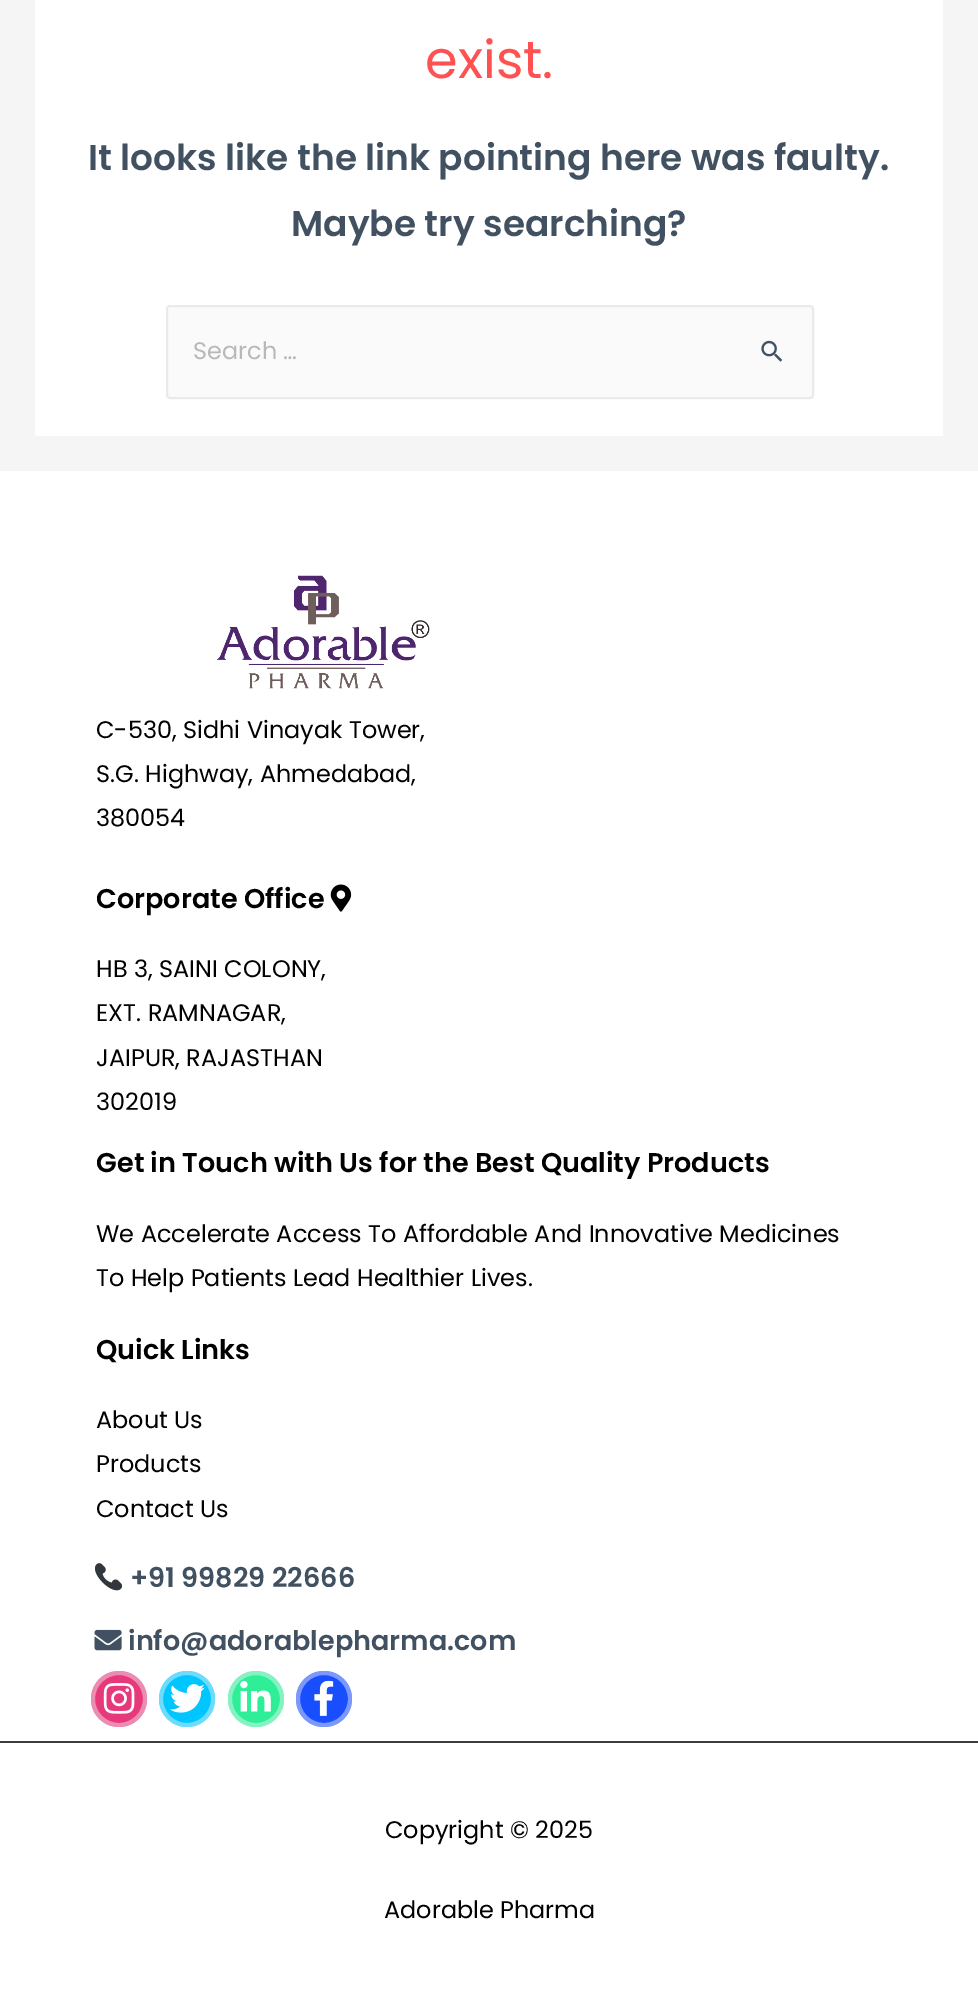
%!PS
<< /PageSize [978 1997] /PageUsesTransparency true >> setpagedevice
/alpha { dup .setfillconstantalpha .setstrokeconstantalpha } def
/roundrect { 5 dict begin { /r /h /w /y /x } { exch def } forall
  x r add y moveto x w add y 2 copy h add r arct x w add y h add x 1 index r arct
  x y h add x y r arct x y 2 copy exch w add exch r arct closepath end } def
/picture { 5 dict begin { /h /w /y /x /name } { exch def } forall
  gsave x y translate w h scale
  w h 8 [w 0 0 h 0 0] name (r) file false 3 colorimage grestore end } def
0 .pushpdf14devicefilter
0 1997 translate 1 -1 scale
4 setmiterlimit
0.961 setgray
0 0 978 1997 rectfill
1 setgray
35 0 908 436 rectfill
/Poppins-Regular [52.5 0 0 -52.5 0 0] selectfont
1 0.318 0.318 setrgbcolor
425 78 moveto (exist.) show
/Poppins-SemiBold [35.9 0 0 -35.9 0 0] selectfont
0.255 0.318 0.38 setrgbcolor
88 170 moveto (It looks like the link pointing here was faulty.) show
291 236 moveto (Maybe try searching?) show
0.98 setgray
167 306 646 92 3 roundrect gsave fill grestore
0.918 setgray
2 setlinewidth
stroke
/Poppins-Regular [23.95 0 0 -23.95 0 0] selectfont
0.722 setgray
193 359 moveto (Search …) show
(img1.rgb) 761 340 22 22 picture
1 setgray
0 471 978 1270 rectfill
(img2.rgb) 217 575 213 114 picture
0 setgray
96 738 moveto (C-530, Sidhi Vinayak Tower,) show
96 782 moveto (S.G. Highway, Ahmedabad,) show
96 826 moveto (380054) show
/Poppins-SemiBold [27.1 0 0 -27.1 0 0] selectfont
96 908 moveto (Corporate Office) show
(img3.rgb) 330 884 22 28 picture
/Poppins-Regular [23.95 0 0 -23.95 0 0] selectfont
96 977 moveto (HB 3, SAINI COLONY,) show
96 1021 moveto (EXT. RAMNAGAR,) show
96 1066 moveto (JAIPUR, RAJASTHAN) show
96 1110 moveto (302019) show
/Poppins-SemiBold [27.1 0 0 -27.1 0 0] selectfont
96 1172 moveto (Get in Touch with Us for the Best Quality Products) show
/Poppins-Regular [23.95 0 0 -23.95 0 0] selectfont
96 1242 moveto (We Accelerate Access To Affordable And Innovative Medicines) show
96 1286 moveto (To Help Patients Lead Healthier Lives.) show
/Poppins-SemiBold [27.1 0 0 -27.1 0 0] selectfont
96 1359 moveto (Quick Links) show
/Poppins-Regular [23.95 0 0 -23.95 0 0] selectfont
96 1428 moveto (About Us) show
96 1472 moveto (Products) show
96 1517 moveto (Contact Us) show
(img4.rgb) 95 1563 28 28 picture
/Poppins-SemiBold [27.1 0 0 -27.1 0 0] selectfont
0.255 0.318 0.38 setrgbcolor
130 1587 moveto (+91 99829 22666) show
(img5.rgb) 94 1629 28 22 picture
128 1650 moveto (info@adorablepharma.com) show
0.902 0.22 0.478 setrgbcolor
newpath 119 1699 28 0 360 arc closepath fill
0.45 alpha
0.949 0.961 0.969 setrgbcolor
4 setlinewidth
newpath 119 1699 26 0 360 arc closepath stroke
1 alpha
(img6.rgb) 103 1683 32 31 picture
0 0.776 1 setrgbcolor
newpath 187 1699 28 0 360 arc closepath fill
0.45 alpha
0.949 0.961 0.969 setrgbcolor
newpath 187 1699 26 0 360 arc closepath stroke
1 alpha
(img7.rgb) 170 1684 35 29 picture
0.18 0.937 0.592 setrgbcolor
newpath 256 1699 28 0 360 arc closepath fill
0.45 alpha
0.949 0.961 0.969 setrgbcolor
newpath 256 1699 26 0 360 arc closepath stroke
1 alpha
(img8.rgb) 240 1680 31 32 picture
0.098 0.306 1 setrgbcolor
newpath 324 1699 28 0 360 arc closepath fill
0.45 alpha
0.949 0.961 0.969 setrgbcolor
newpath 324 1699 26 0 360 arc closepath stroke
1 alpha
(img9.rgb) 314 1680 20 36 picture
1 setgray
0 1743 978 254 rectfill
0.239 setgray
0 1741 978 2 rectfill
/Poppins-Regular [23.95 0 0 -23.95 0 0] selectfont
0 setgray
385 1838 moveto (Copyright © 2025) show
384 1918 moveto (Adorable Pharma) show
.poppdf14devicefilter showpage
